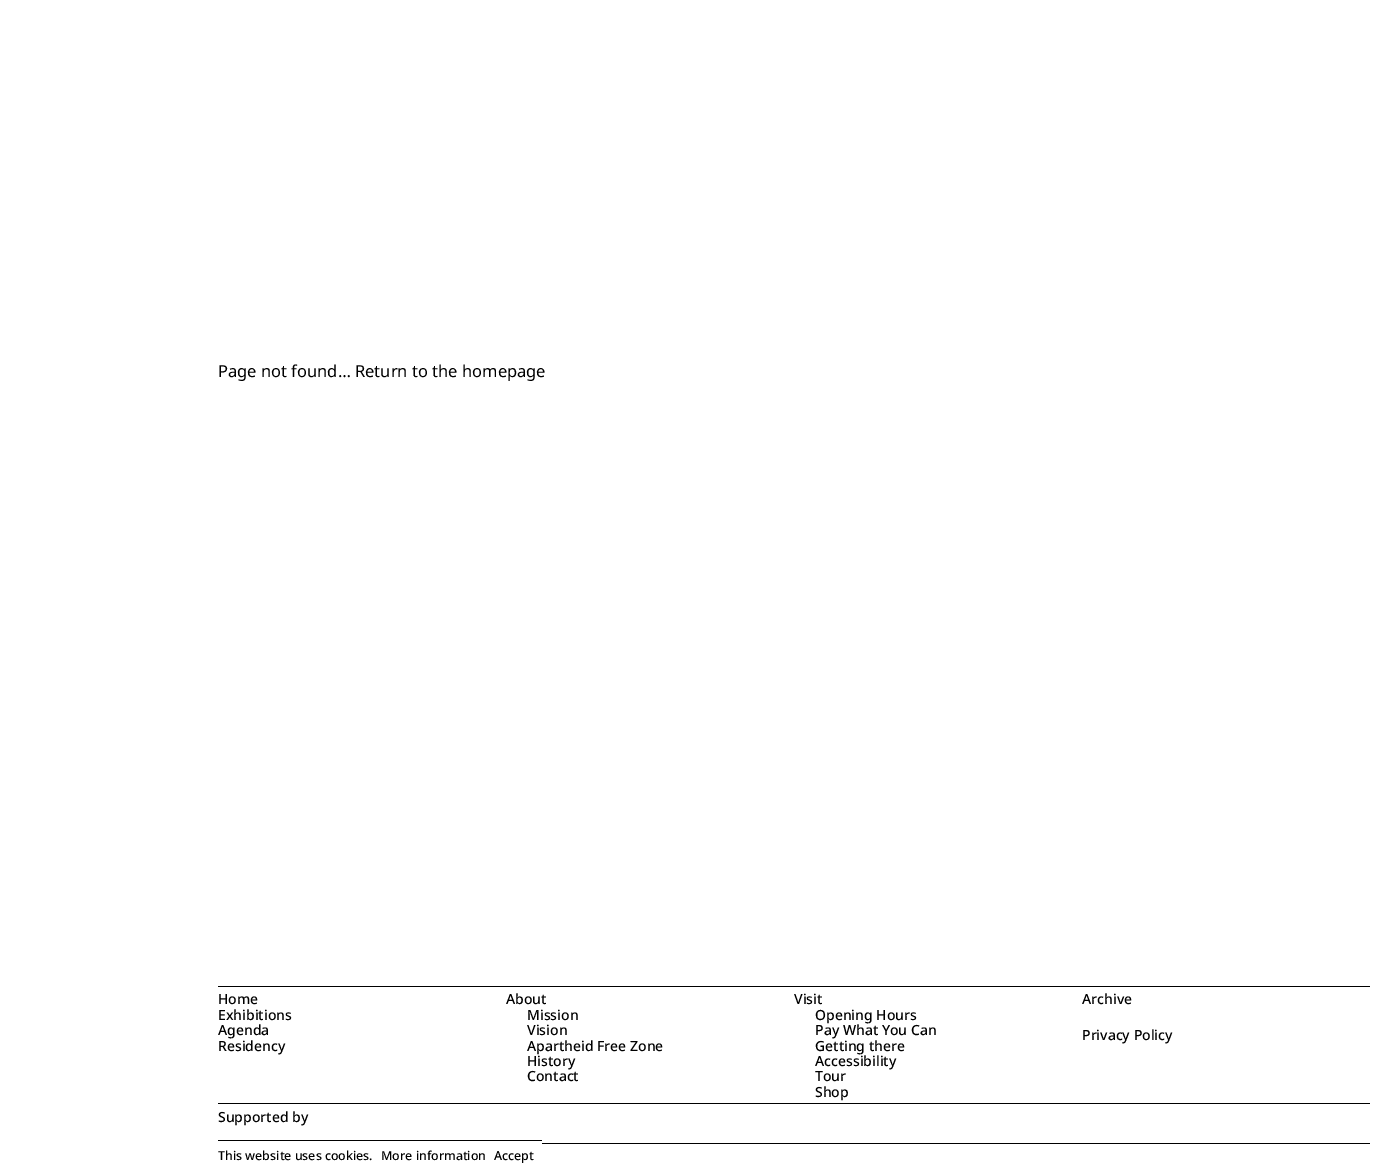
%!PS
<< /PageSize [1378 1171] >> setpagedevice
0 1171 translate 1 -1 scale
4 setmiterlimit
1 setgray
0 0 1378 1171 rectfill
/NotoSans-Regular [16.5 0 0 -16.5 0 0] selectfont
0 setgray
218 377 moveto (Page not found… Return to the homepage) show
218 1140 324 1 rectfill
/NotoSans-Medium [12.4 0 0 -12.4 0 0] selectfont
218 1160 moveto (This website uses cookies.) show
381 1160 moveto (More information) show
494 1160 moveto (Accept) show
218 986 1152 1 rectfill
/NotoSans-Medium [14 0 0 -14 0 0] selectfont
218 1004 moveto (Home) show
218 1020 moveto (Exhibitions) show
218 1035 moveto (Agenda) show
218 1051 moveto (Residency) show
506 1004 moveto (About) show
527 1020 moveto (Mission) show
527 1035 moveto (Vision) show
527 1051 moveto (Apartheid Free Zone) show
527 1066 moveto (History) show
527 1081 moveto (Contact) show
794 1004 moveto (Visit) show
815 1020 moveto (Opening Hours) show
815 1035 moveto (Pay What You Can) show
815 1051 moveto (Getting there) show
815 1066 moveto (Accessibility) show
815 1081 moveto (Tour) show
815 1097 moveto (Shop) show
1082 1004 moveto (Archive) show
1082 1040 moveto (Privacy Policy) show
218 1103 1152 1 rectfill
218 1122 moveto (Supported by) show
542 1143 828 1 rectfill
showpage
